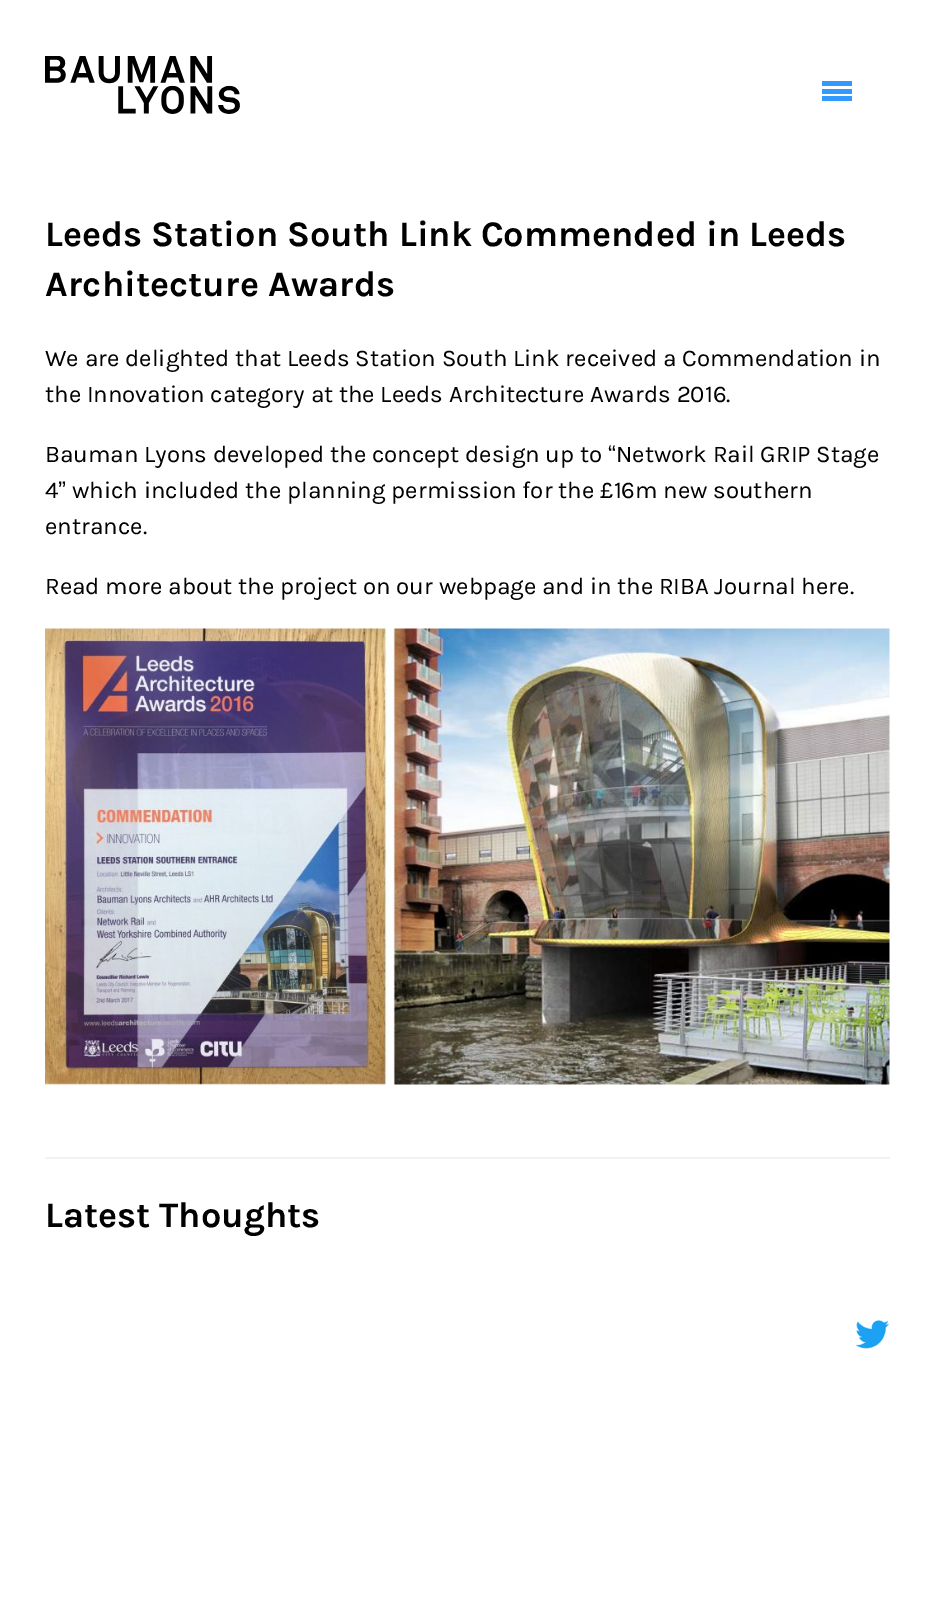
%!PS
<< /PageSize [934 1623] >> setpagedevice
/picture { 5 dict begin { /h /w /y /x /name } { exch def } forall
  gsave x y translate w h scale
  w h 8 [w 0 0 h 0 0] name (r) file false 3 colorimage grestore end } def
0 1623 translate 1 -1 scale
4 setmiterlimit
1 setgray
0 0 934 1623 rectfill
(img1.rgb) 45 56 195 58 picture
0.196 0.6 1 setrgbcolor
822 89 30 5 rectfill
822 81 30 5 rectfill
822 96 30 5 rectfill
/Karla-Bold [36 0 0 -36 0 0] selectfont
0 setgray
45 246 moveto (Leeds Station South Link Commended in Leeds) show
45 296 moveto (Architecture Awards) show
/Karla-Regular [24 0 0 -24 0 0] selectfont
45 366 moveto (We are delighted that Leeds Station South Link received a Commendation in) show
45 402 moveto (the Innovation category at the Leeds Architecture Awards 2016.) show
45 462 moveto (Bauman Lyons developed the concept design up to) show
/LiberationSans-Regular [24 0 0 -24 0 0] selectfont
608 462 moveto (“) show
/Karla-Regular [24 0 0 -24 0 0] selectfont
616 462 moveto (Network Rail GRIP Stage) show
45 498 moveto (4) show
/LiberationSans-Regular [24 0 0 -24 0 0] selectfont
58 498 moveto (”) show
/Karla-Regular [24 0 0 -24 0 0] selectfont
72 498 moveto (which included the planning permission for the £16m new southern) show
45 534 moveto (entrance.) show
45 594 moveto (Read more about the project on our webpage and in the RIBA Journal here.) show
(img2.rgb) 45 628 845 457 picture
0.949 setgray
45 1157 845 2 rectfill
/Karla-Bold [36 0 0 -36 0 0] selectfont
0 setgray
45 1227 moveto (Latest Thoughts) show
(img3.rgb) 855 1320 35 29 picture
showpage
